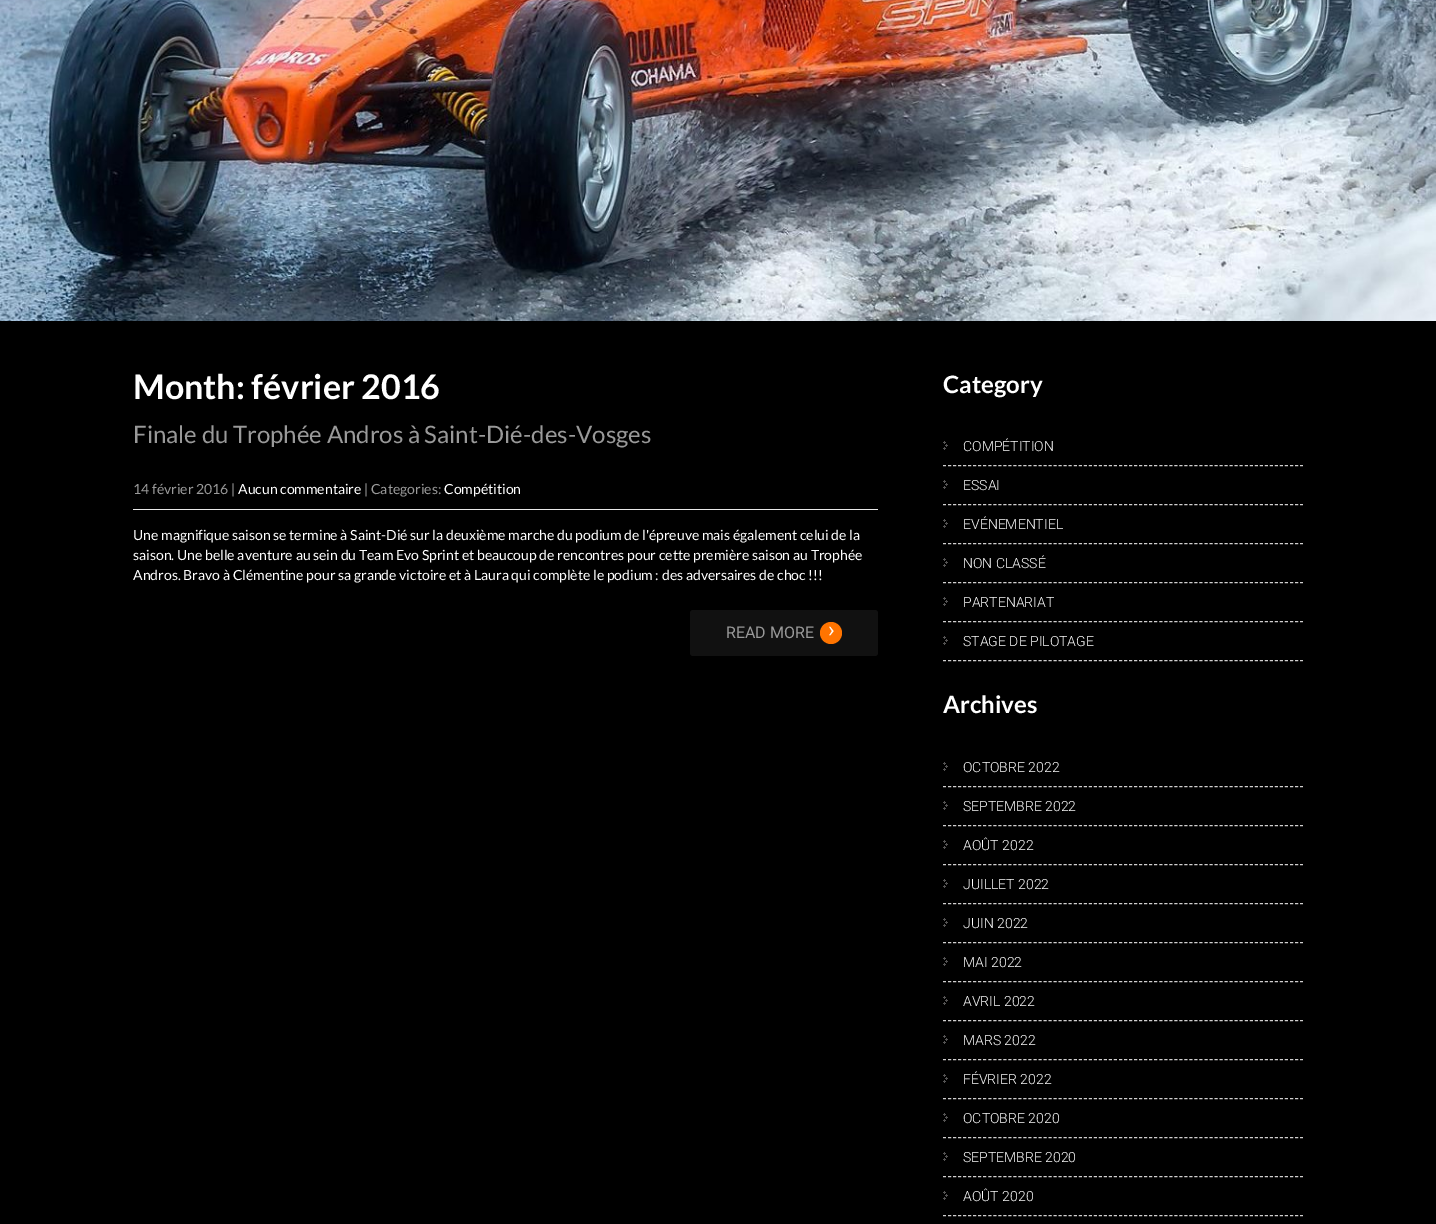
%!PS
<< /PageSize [1436 1224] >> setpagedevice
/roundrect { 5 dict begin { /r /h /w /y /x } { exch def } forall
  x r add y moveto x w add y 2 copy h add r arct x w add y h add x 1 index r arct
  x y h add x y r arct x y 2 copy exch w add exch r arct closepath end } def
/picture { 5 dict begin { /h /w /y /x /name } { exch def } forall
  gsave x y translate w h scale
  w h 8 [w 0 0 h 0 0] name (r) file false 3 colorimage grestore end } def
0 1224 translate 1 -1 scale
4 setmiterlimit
0 setgray
0 0 1436 1224 rectfill
(img1.rgb) 0 0 1436 321 picture
/Lato-Bold [34 0 0 -34 0 0] selectfont
1 setgray
133 399 moveto (Month: février 2016) show
/Lato-Regular [24 0 0 -24 0 0] selectfont
0.6 setgray
133 443 moveto (Finale du Trophée Andros à Saint-Dié-des-Vosges) show
0.91 setgray
133 509 745 1 rectfill
/Lato-Regular [14 0 0 -14 0 0] selectfont
0.6 setgray
133 494 moveto (14 février 2016 |) show
1 setgray
238 494 moveto (Aucun commentaire) show
0.6 setgray
364 494 moveto (| Categories:) show
1 setgray
444 494 moveto (Compétition) show
133 540 moveto (Une magnifique saison se termine à Saint-Dié sur la deuxième marche du podium de l'épreuve mais également celui de la) show
133 560 moveto (saison. Une belle aventure au sein du Team Evo Sprint et beaucoup de rencontres pour cette première saison au Trophée) show
133 580 moveto (Andros. Bravo à Clémentine pour sa grande victoire et à Laura qui complète le podium : des adversaires de choc !!!) show
0.067 setgray
690 610 188 46 3 roundrect fill
/Roboto-Regular [16 0 0 -16 0 0] selectfont
0.6 setgray
726 638 moveto (READ MORE) show
1 0.455 0 setrgbcolor
newpath 831 633 11 0 360 arc closepath fill
/Roboto-Regular [22 0 0 -22 0 0] selectfont
1 setgray
828 637 moveto (›) show
/Lato-Bold [24 0 0 -24 0 0] selectfont
943 393 moveto (Category) show
(img2.rgb) 943 441 5 9 picture
0.816 0.812 0.812 setrgbcolor
[3 2.03] 0 setdash
newpath 943 465.5 moveto 1303 465.5 lineto stroke
/Roboto-Light [14 0 0 -14 0 0] selectfont
1 setgray
963 451 moveto (COMPÉTITION) show
(img2.rgb) 943 480 5 9 picture
0.816 0.812 0.812 setrgbcolor
newpath 943 504.5 moveto 1303 504.5 lineto stroke
1 setgray
963 490 moveto (ESSAI) show
(img2.rgb) 943 519 5 9 picture
0.816 0.812 0.812 setrgbcolor
newpath 943 543.5 moveto 1303 543.5 lineto stroke
1 setgray
963 529 moveto (EVÉNEMENTIEL) show
(img2.rgb) 943 558 5 9 picture
0.816 0.812 0.812 setrgbcolor
newpath 943 582.5 moveto 1303 582.5 lineto stroke
1 setgray
963 568 moveto (NON CLASSÉ) show
(img2.rgb) 943 597 5 9 picture
0.816 0.812 0.812 setrgbcolor
newpath 943 621.5 moveto 1303 621.5 lineto stroke
1 setgray
963 607 moveto (PARTENARIAT) show
(img2.rgb) 943 636 5 9 picture
0.816 0.812 0.812 setrgbcolor
newpath 943 660.5 moveto 1303 660.5 lineto stroke
1 setgray
963 646 moveto (STAGE DE PILOTAGE) show
/Lato-Bold [24 0 0 -24 0 0] selectfont
943 713 moveto (Archives) show
(img2.rgb) 943 762 5 9 picture
0.816 0.812 0.812 setrgbcolor
newpath 943 786.5 moveto 1303 786.5 lineto stroke
/Roboto-Light [14 0 0 -14 0 0] selectfont
1 setgray
963 772 moveto (OCTOBRE 2022) show
(img2.rgb) 943 801 5 9 picture
0.816 0.812 0.812 setrgbcolor
newpath 943 825.5 moveto 1303 825.5 lineto stroke
1 setgray
963 811 moveto (SEPTEMBRE 2022) show
(img2.rgb) 943 840 5 9 picture
0.816 0.812 0.812 setrgbcolor
newpath 943 864.5 moveto 1303 864.5 lineto stroke
1 setgray
963 850 moveto (AOÛT 2022) show
(img2.rgb) 943 879 5 9 picture
0.816 0.812 0.812 setrgbcolor
newpath 943 903.5 moveto 1303 903.5 lineto stroke
1 setgray
963 889 moveto (JUILLET 2022) show
(img2.rgb) 943 918 5 9 picture
0.816 0.812 0.812 setrgbcolor
newpath 943 942.5 moveto 1303 942.5 lineto stroke
1 setgray
963 928 moveto (JUIN 2022) show
(img2.rgb) 943 957 5 9 picture
0.816 0.812 0.812 setrgbcolor
newpath 943 981.5 moveto 1303 981.5 lineto stroke
1 setgray
963 967 moveto (MAI 2022) show
(img2.rgb) 943 996 5 9 picture
0.816 0.812 0.812 setrgbcolor
newpath 943 1020.5 moveto 1303 1020.5 lineto stroke
1 setgray
963 1006 moveto (AVRIL 2022) show
(img2.rgb) 943 1035 5 9 picture
0.816 0.812 0.812 setrgbcolor
newpath 943 1059.5 moveto 1303 1059.5 lineto stroke
1 setgray
963 1045 moveto (MARS 2022) show
(img2.rgb) 943 1074 5 9 picture
0.816 0.812 0.812 setrgbcolor
newpath 943 1098.5 moveto 1303 1098.5 lineto stroke
1 setgray
963 1084 moveto (FÉVRIER 2022) show
(img2.rgb) 943 1113 5 9 picture
0.816 0.812 0.812 setrgbcolor
newpath 943 1137.5 moveto 1303 1137.5 lineto stroke
1 setgray
963 1123 moveto (OCTOBRE 2020) show
(img2.rgb) 943 1152 5 9 picture
0.816 0.812 0.812 setrgbcolor
newpath 943 1176.5 moveto 1303 1176.5 lineto stroke
1 setgray
963 1162 moveto (SEPTEMBRE 2020) show
(img2.rgb) 943 1191 5 9 picture
0.816 0.812 0.812 setrgbcolor
newpath 943 1215.5 moveto 1303 1215.5 lineto stroke
1 setgray
963 1201 moveto (AOÛT 2020) show
showpage
